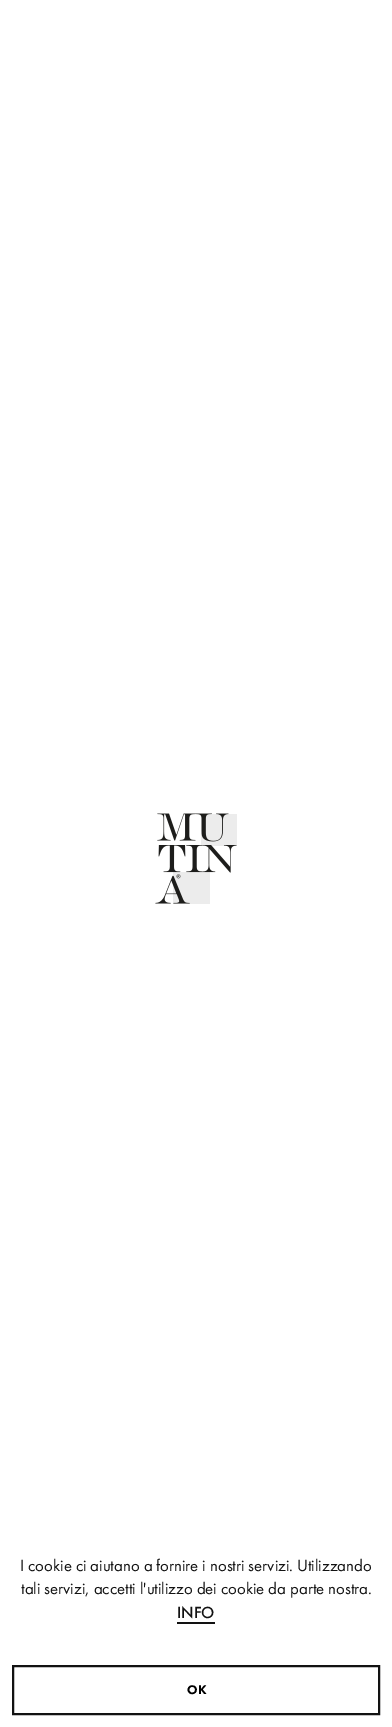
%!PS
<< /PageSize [392 1727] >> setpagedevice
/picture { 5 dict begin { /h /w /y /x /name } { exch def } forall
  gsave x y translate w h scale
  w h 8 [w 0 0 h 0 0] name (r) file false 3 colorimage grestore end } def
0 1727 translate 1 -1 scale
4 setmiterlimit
1 setgray
0 0 392 1727 rectfill
(img1.rgb) 155 813 82 91 picture
/FuturaPT-Regular [16.8 0 0 -16.8 0 0] selectfont
0.071 setgray
20 1571 moveto (I cookie ci aiutano a fornire i nostri servizi. Utilizzando) show
21 1594 moveto (tali servizi, accetti l'utilizzo dei cookie da parte nostra.) show
/FuturaPT-Medium [16.8 0 0 -16.8 0 0] selectfont
177 1618 moveto (INFO) show
177 1622 38 2 rectfill
2 setlinewidth
13 1666 366 48 rectstroke
/FuturaPT-Black [13 0 0 -13 0 0] selectfont
0 setgray
187 1694 moveto (OK) show
showpage
